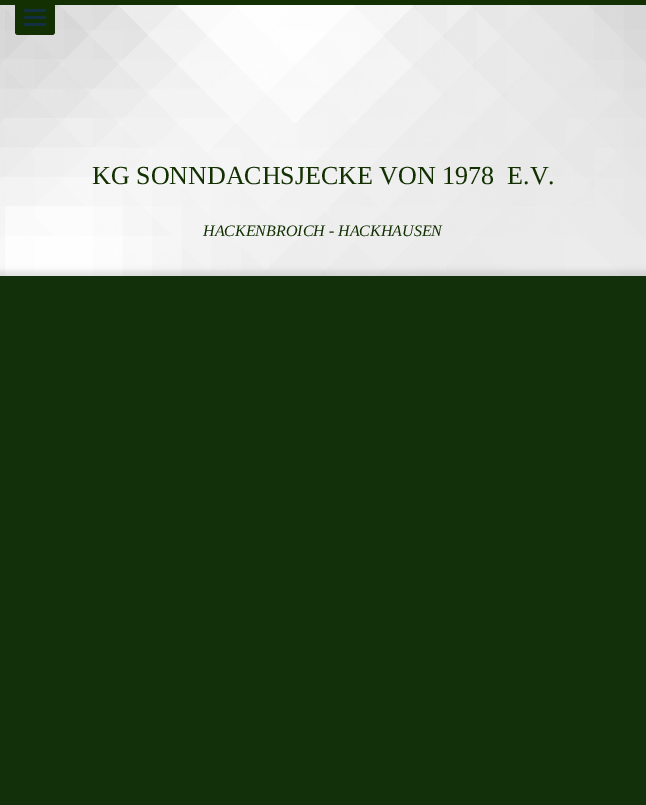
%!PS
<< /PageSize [646 805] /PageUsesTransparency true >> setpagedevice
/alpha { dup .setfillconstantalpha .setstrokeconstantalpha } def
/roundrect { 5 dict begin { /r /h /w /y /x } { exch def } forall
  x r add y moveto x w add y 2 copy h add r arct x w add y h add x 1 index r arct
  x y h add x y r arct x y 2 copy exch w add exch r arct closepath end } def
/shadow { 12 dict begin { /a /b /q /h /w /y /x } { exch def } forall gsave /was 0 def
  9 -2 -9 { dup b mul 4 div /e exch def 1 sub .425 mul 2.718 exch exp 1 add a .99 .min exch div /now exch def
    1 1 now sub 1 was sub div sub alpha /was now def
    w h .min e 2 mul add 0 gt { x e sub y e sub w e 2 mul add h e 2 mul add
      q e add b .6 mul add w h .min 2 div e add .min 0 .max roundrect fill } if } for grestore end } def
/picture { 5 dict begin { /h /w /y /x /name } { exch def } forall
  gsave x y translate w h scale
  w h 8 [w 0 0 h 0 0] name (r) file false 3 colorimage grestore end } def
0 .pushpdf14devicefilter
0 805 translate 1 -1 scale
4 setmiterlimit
1 setgray
0 0 646 805 rectfill
(img1.rgb) 0 5 646 271 picture
0.071 0.188 0.004 setrgbcolor
0 0 646 5 rectfill
15 0 40 35 3 roundrect fill
0.071 0.188 0.255 setrgbcolor
24 9 22 3 rectfill
24 16 22 3 rectfill
24 23 22 3 rectfill
/LiberationSerif-Regular [26 0 0 -26 0 0] selectfont
0.071 0.188 0.004 setrgbcolor
92 184 moveto (KG SONNDACHSJECKE VON 1978  E.V.) show
/LiberationSerif-Italic [16 0 0 -16 0 0] selectfont
203 236 moveto (HACKENBROICH - HACKHAUSEN) show
0 setgray
-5 271 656 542 0 2.5 0.1 shadow
0.071 0.188 0.035 setrgbcolor
0 276 646 529 rectfill
.poppdf14devicefilter showpage
